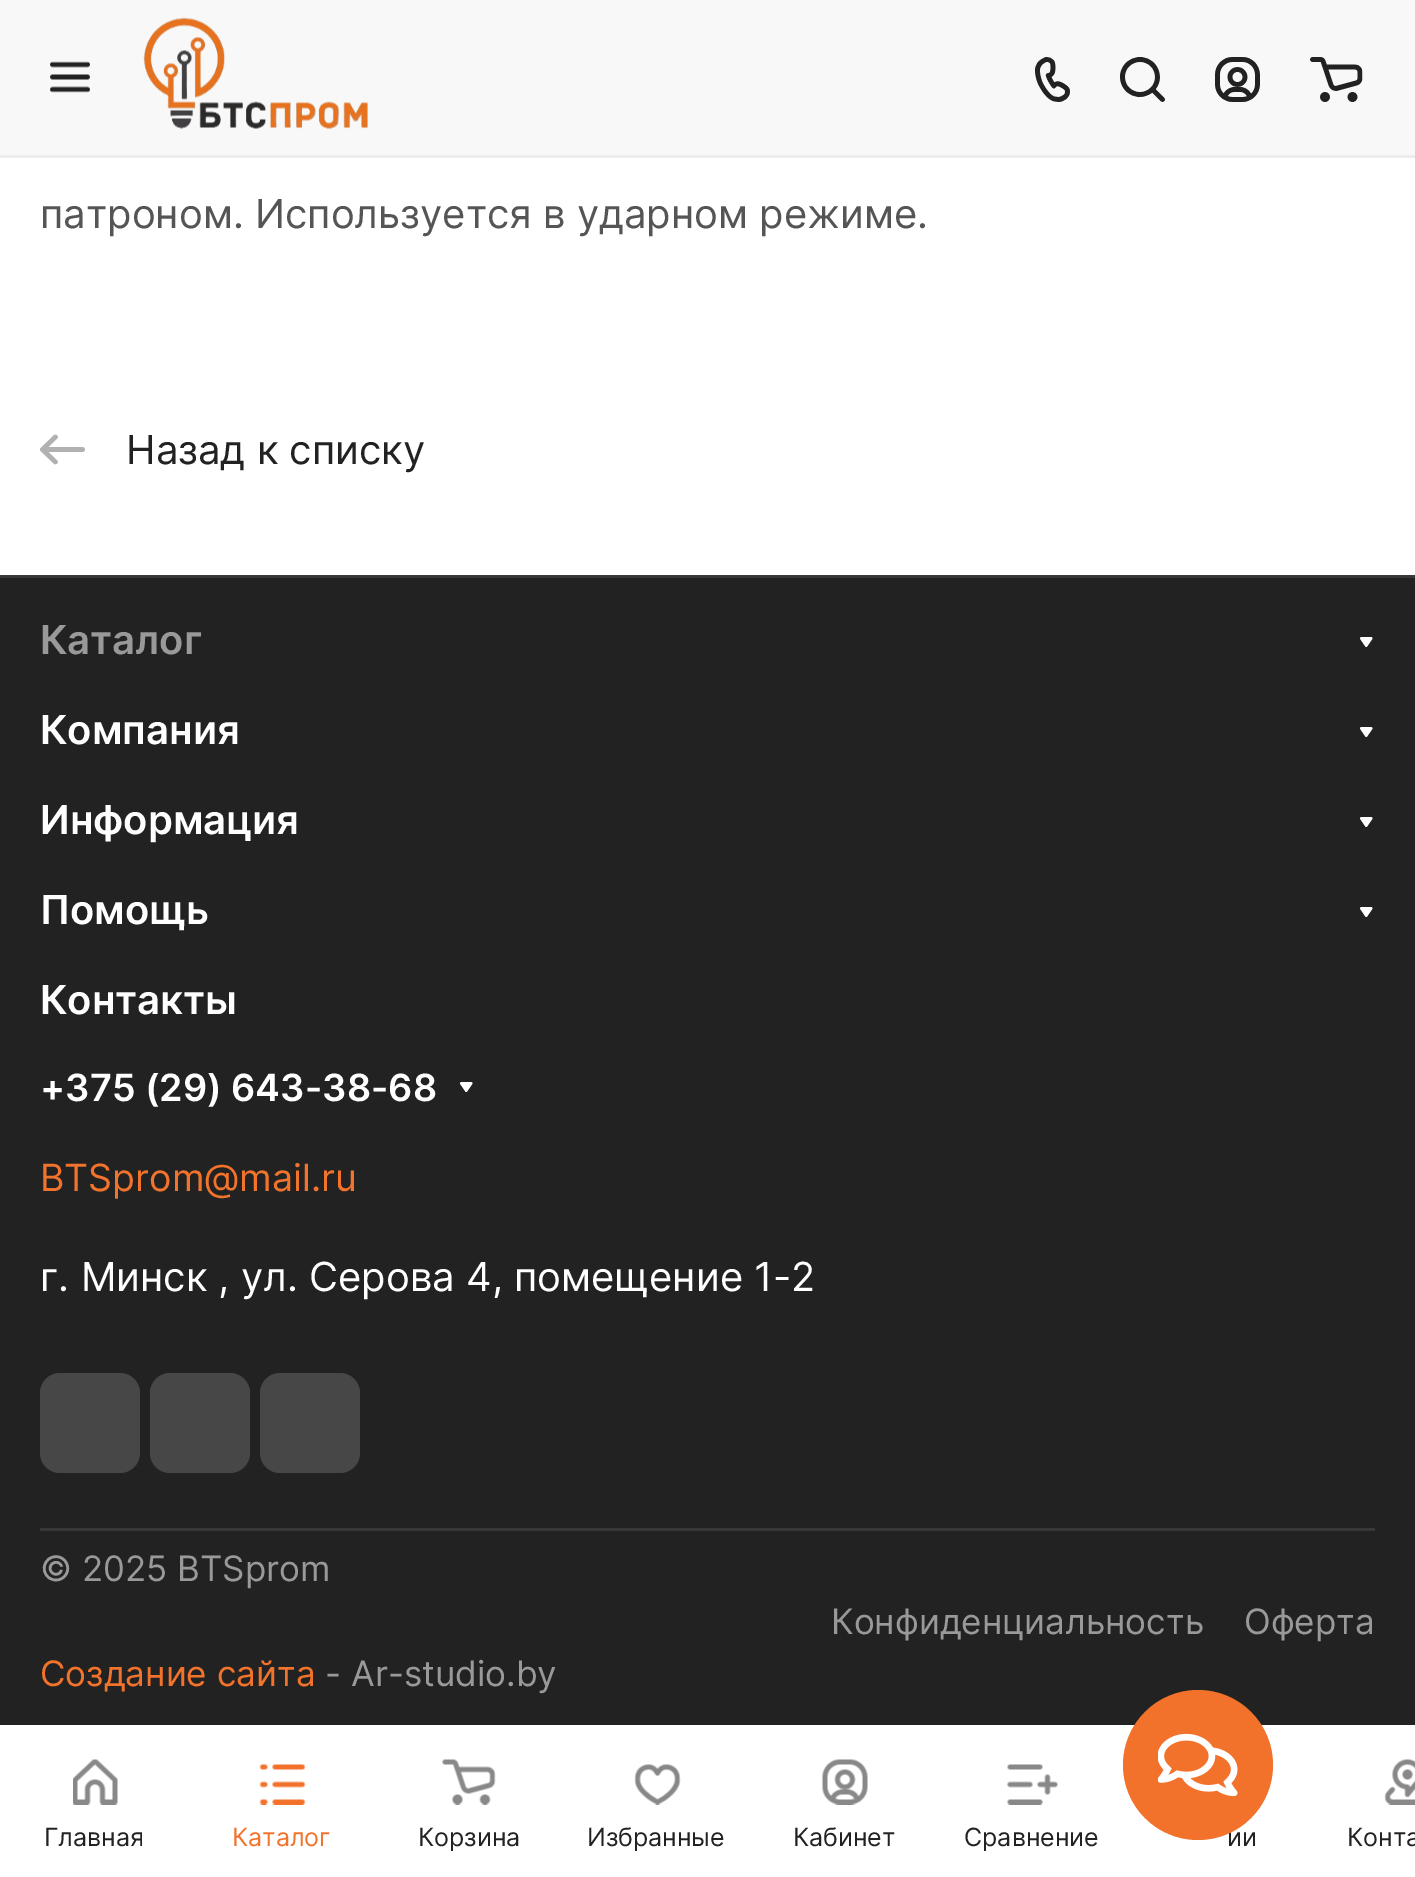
%!PS
<< /PageSize [1415 1877] >> setpagedevice
/roundrect { 5 dict begin { /r /h /w /y /x } { exch def } forall
  x r add y moveto x w add y 2 copy h add r arct x w add y h add x 1 index r arct
  x y h add x y r arct x y 2 copy exch w add exch r arct closepath end } def
/picture { 5 dict begin { /h /w /y /x /name } { exch def } forall
  gsave x y translate w h scale
  w h 8 [w 0 0 h 0 0] name (r) file false 3 colorimage grestore end } def
0 1877 translate 1 -1 scale
4 setmiterlimit
1 setgray
0 0 1415 1877 rectfill
0.929 setgray
0 155 1415 3 rectfill
0.973 setgray
0 0 1415 155 rectfill
(img1.rgb) 50 61 40 32 picture
(img2.rgb) 143 17 225 112 picture
(img3.rgb) 1035 57 35 45 picture
(img4.rgb) 1120 57 45 45 picture
(img5.rgb) 1215 57 45 45 picture
(img6.rgb) 1310 57 53 45 picture
/Inter-Regular [40 0 0 -40 0 0] selectfont
0.333 setgray
40 228 moveto (патроном. Используется в ударном режиме.) show
(img7.rgb) 40 434 45 31 picture
0.133 setgray
126 464 moveto (Назад к списку) show
0 578 1415 1147 rectfill
0.22 setgray
0 575 1415 3 rectfill
/Inter-SemiBold [40 0 0 -40 0 0] selectfont
0.6 setgray
40 654 moveto (Каталог) show
(img8.rgb) 1359 637 14 10 picture
1 setgray
40 744 moveto (Компания) show
(img8.rgb) 1359 727 14 10 picture
40 834 moveto (Информация) show
(img8.rgb) 1359 817 14 10 picture
40 924 moveto (Помощь) show
(img8.rgb) 1359 907 14 10 picture
40 1014 moveto (Контакты) show
/Inter-SemiBold [37.5 0 0 -37.5 0 0] selectfont
40 1101 moveto (+375 \(29\) 643-38-68) show
(img8.rgb) 459 1082 14 10 picture
/Inter-Regular [37.5 0 0 -37.5 0 0] selectfont
0.949 0.451 0.173 setrgbcolor
40 1191 moveto (BTSprom@mail.ru) show
/Inter-Regular [40 0 0 -40 0 0] selectfont
1 setgray
40 1291 moveto (г. Минск , ул. Серова 4, помещение 1-2) show
0.278 setgray
40 1373 100 100 20 roundrect fill
150 1373 100 100 20 roundrect fill
260 1373 100 100 20 roundrect fill
0.22 setgray
40 1528 1335 3 rectfill
/Inter-Regular [35 0 0 -35 0 0] selectfont
0.6 setgray
40 1581 moveto (© 2025 BTSprom) show
0.949 0.451 0.173 setrgbcolor
40 1686 moveto (Создание сайта) show
0.6 setgray
325 1686 moveto (- Ar-studio.by) show
831 1634 moveto (Конфиденциальность) show
1244 1634 moveto (Оферта) show
/Inter-Regular [25 0 0 -25 0 0] selectfont
0.133 setgray
1227 1846 moveto (ии) show
0.949 0.447 0.173 setrgbcolor
newpath 1198 1765 75 0 360 arc closepath fill
(img9.rgb) 1158 1733 80 64 picture
(img10.rgb) 73 1759 45 46 picture
0.133 setgray
44 1846 moveto (Главная) show
(img11.rgb) 259 1764 47 41 picture
0.949 0.451 0.173 setrgbcolor
232 1846 moveto (Каталог) show
(img12.rgb) 442 1759 54 46 picture
0.133 setgray
418 1846 moveto (Корзина) show
(img13.rgb) 634 1764 47 41 picture
587 1846 moveto (Избранные) show
(img14.rgb) 822 1759 46 46 picture
793 1846 moveto (Кабинет) show
(img15.rgb) 1007 1764 51 41 picture
964 1846 moveto (Сравнение) show
(img16.rgb) 1384 1759 31 46 picture
1347 1846 moveto (Конта) show
showpage
